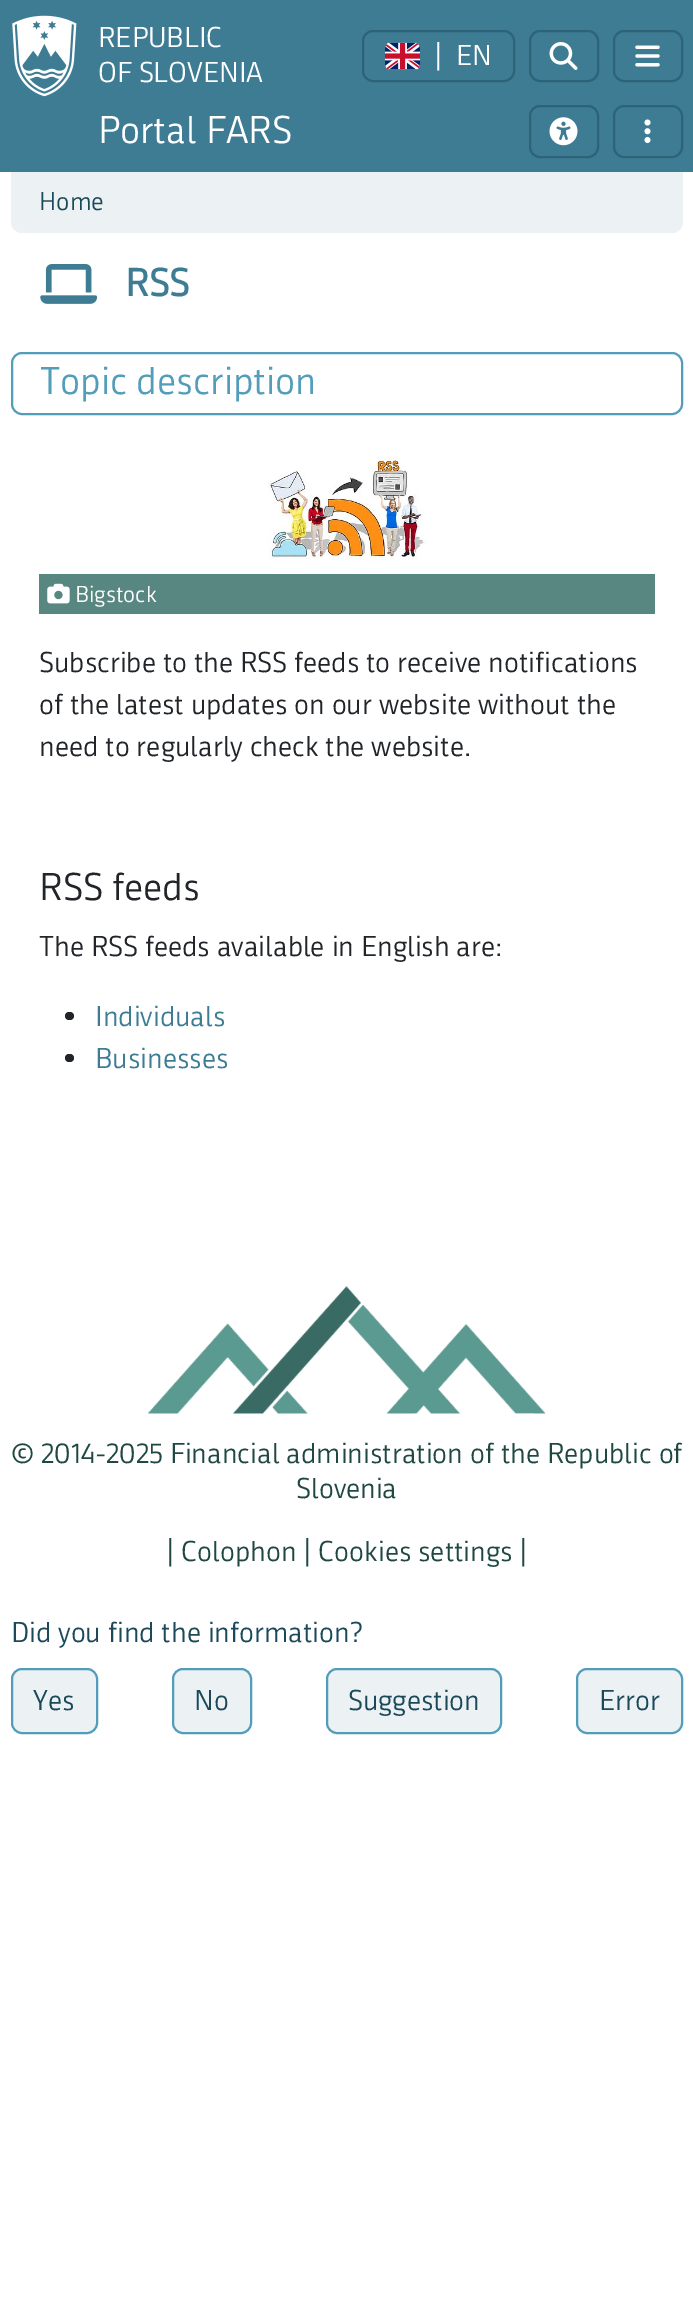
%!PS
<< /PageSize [693 2320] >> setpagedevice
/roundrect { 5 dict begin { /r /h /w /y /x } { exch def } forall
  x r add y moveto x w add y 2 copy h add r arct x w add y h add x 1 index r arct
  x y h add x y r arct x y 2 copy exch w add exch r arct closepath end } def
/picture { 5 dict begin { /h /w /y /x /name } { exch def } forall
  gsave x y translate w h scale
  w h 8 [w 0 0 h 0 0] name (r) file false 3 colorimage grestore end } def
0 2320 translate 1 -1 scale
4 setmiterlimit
1 setgray
0 0 693 2320 rectfill
0.243 0.486 0.58 setrgbcolor
0 0 693 172 rectfill
(img1.rgb) 12 15 65 82 picture
/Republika-Regular [28 0 0 -28 0 0] selectfont
1 setgray
98 47 moveto (REPUBLIC) show
98 82 moveto (OF SLOVENIA) show
0.176 0.388 0.467 setrgbcolor
2 setlinewidth
363 31 151 50 10 roundrect stroke
(img2.rgb) 385 42 35 28 picture
1 setgray
434 65 moveto (|) show
456 65 moveto (EN) show
0.176 0.388 0.467 setrgbcolor
530 31 68 50 10 roundrect stroke
(img3.rgb) 549 42 29 28 picture
614 31 68 50 10 roundrect stroke
(img4.rgb) 635 45 25 22 picture
/Republika-Regular [37.75 0 0 -37.75 0 0] selectfont
1 setgray
98 143 moveto (Portal FARS) show
0.176 0.388 0.467 setrgbcolor
530 106 68 51 10 roundrect stroke
(img5.rgb) 549 117 29 29 picture
614 106 68 51 10 roundrect stroke
(img6.rgb) 644 119 7 25 picture
0.925 0.949 0.957 setrgbcolor
newpath 11 172 moveto 683 172 lineto 683 222 lineto 683 228 678 233 672 233 curveto 22 233 lineto 16 233 11 228 11 222 curveto closepath fill
/Republika-Regular [25 0 0 -25 0 0] selectfont
0.106 0.286 0.353 setrgbcolor
39 210 moveto (Home) show
(img7.rgb) 40 264 58 40 picture
/Republika-Bold [37.75 0 0 -37.75 0 0] selectfont
0.243 0.486 0.58 setrgbcolor
125 296 moveto (RSS) show
0.322 0.616 0.729 setrgbcolor
12 353 670 61 10 roundrect stroke
/Republika-Regular [37.75 0 0 -37.75 0 0] selectfont
40 394 moveto (Topic description) show
(img8.rgb) 268 457 159 107 picture
0.345 0.529 0.506 setrgbcolor
39 574 616 40 rectfill
(img9.rgb) 47 583 23 21 picture
/Republika-Regular [22.5 0 0 -22.5 0 0] selectfont
1 setgray
75 602 moveto (Bigstock) show
/Republika-Regular [28 0 0 -28 0 0] selectfont
0.129 0.145 0.161 setrgbcolor
39 672 moveto (Subscribe to the RSS feeds to receive notifications) show
39 714 moveto (of the latest updates on our website without the) show
39 756 moveto (need to regularly check the website.) show
/Republika-Regular [37.75 0 0 -37.75 0 0] selectfont
39 900 moveto (RSS feeds) show
/Republika-Regular [28 0 0 -28 0 0] selectfont
39 956 moveto (The RSS feeds available in English are:) show
65 1012 9 8 4 roundrect fill
0.243 0.486 0.58 setrgbcolor
95 1026 moveto (Individuals) show
0.129 0.145 0.161 setrgbcolor
65 1054 9 8 4 roundrect fill
0.243 0.486 0.58 setrgbcolor
95 1068 moveto (Businesses) show
(img10.rgb) 148 1286 398 128 picture
0.122 0.282 0.263 setrgbcolor
11 1463 moveto (© 2014-2025 Financial administration of the Republic of) show
296 1498 moveto (Slovenia) show
166 1561 moveto (| Colophon | Cookies settings |) show
0.106 0.286 0.353 setrgbcolor
11 1642 moveto (Did you find the information?) show
0.925 0.949 0.957 setrgbcolor
12 1669 85 64 10 roundrect gsave fill grestore
0.322 0.616 0.729 setrgbcolor
stroke
0.106 0.286 0.353 setrgbcolor
33 1710 moveto (Yes) show
0.925 0.949 0.957 setrgbcolor
173 1669 78 64 10 roundrect gsave fill grestore
0.322 0.616 0.729 setrgbcolor
stroke
0.106 0.286 0.353 setrgbcolor
194 1710 moveto (No) show
0.925 0.949 0.957 setrgbcolor
327 1669 174 64 10 roundrect gsave fill grestore
0.322 0.616 0.729 setrgbcolor
stroke
0.106 0.286 0.353 setrgbcolor
348 1710 moveto (Suggestion) show
0.925 0.949 0.957 setrgbcolor
577 1669 105 64 10 roundrect gsave fill grestore
0.322 0.616 0.729 setrgbcolor
stroke
0.106 0.286 0.353 setrgbcolor
599 1710 moveto (Error) show
showpage
